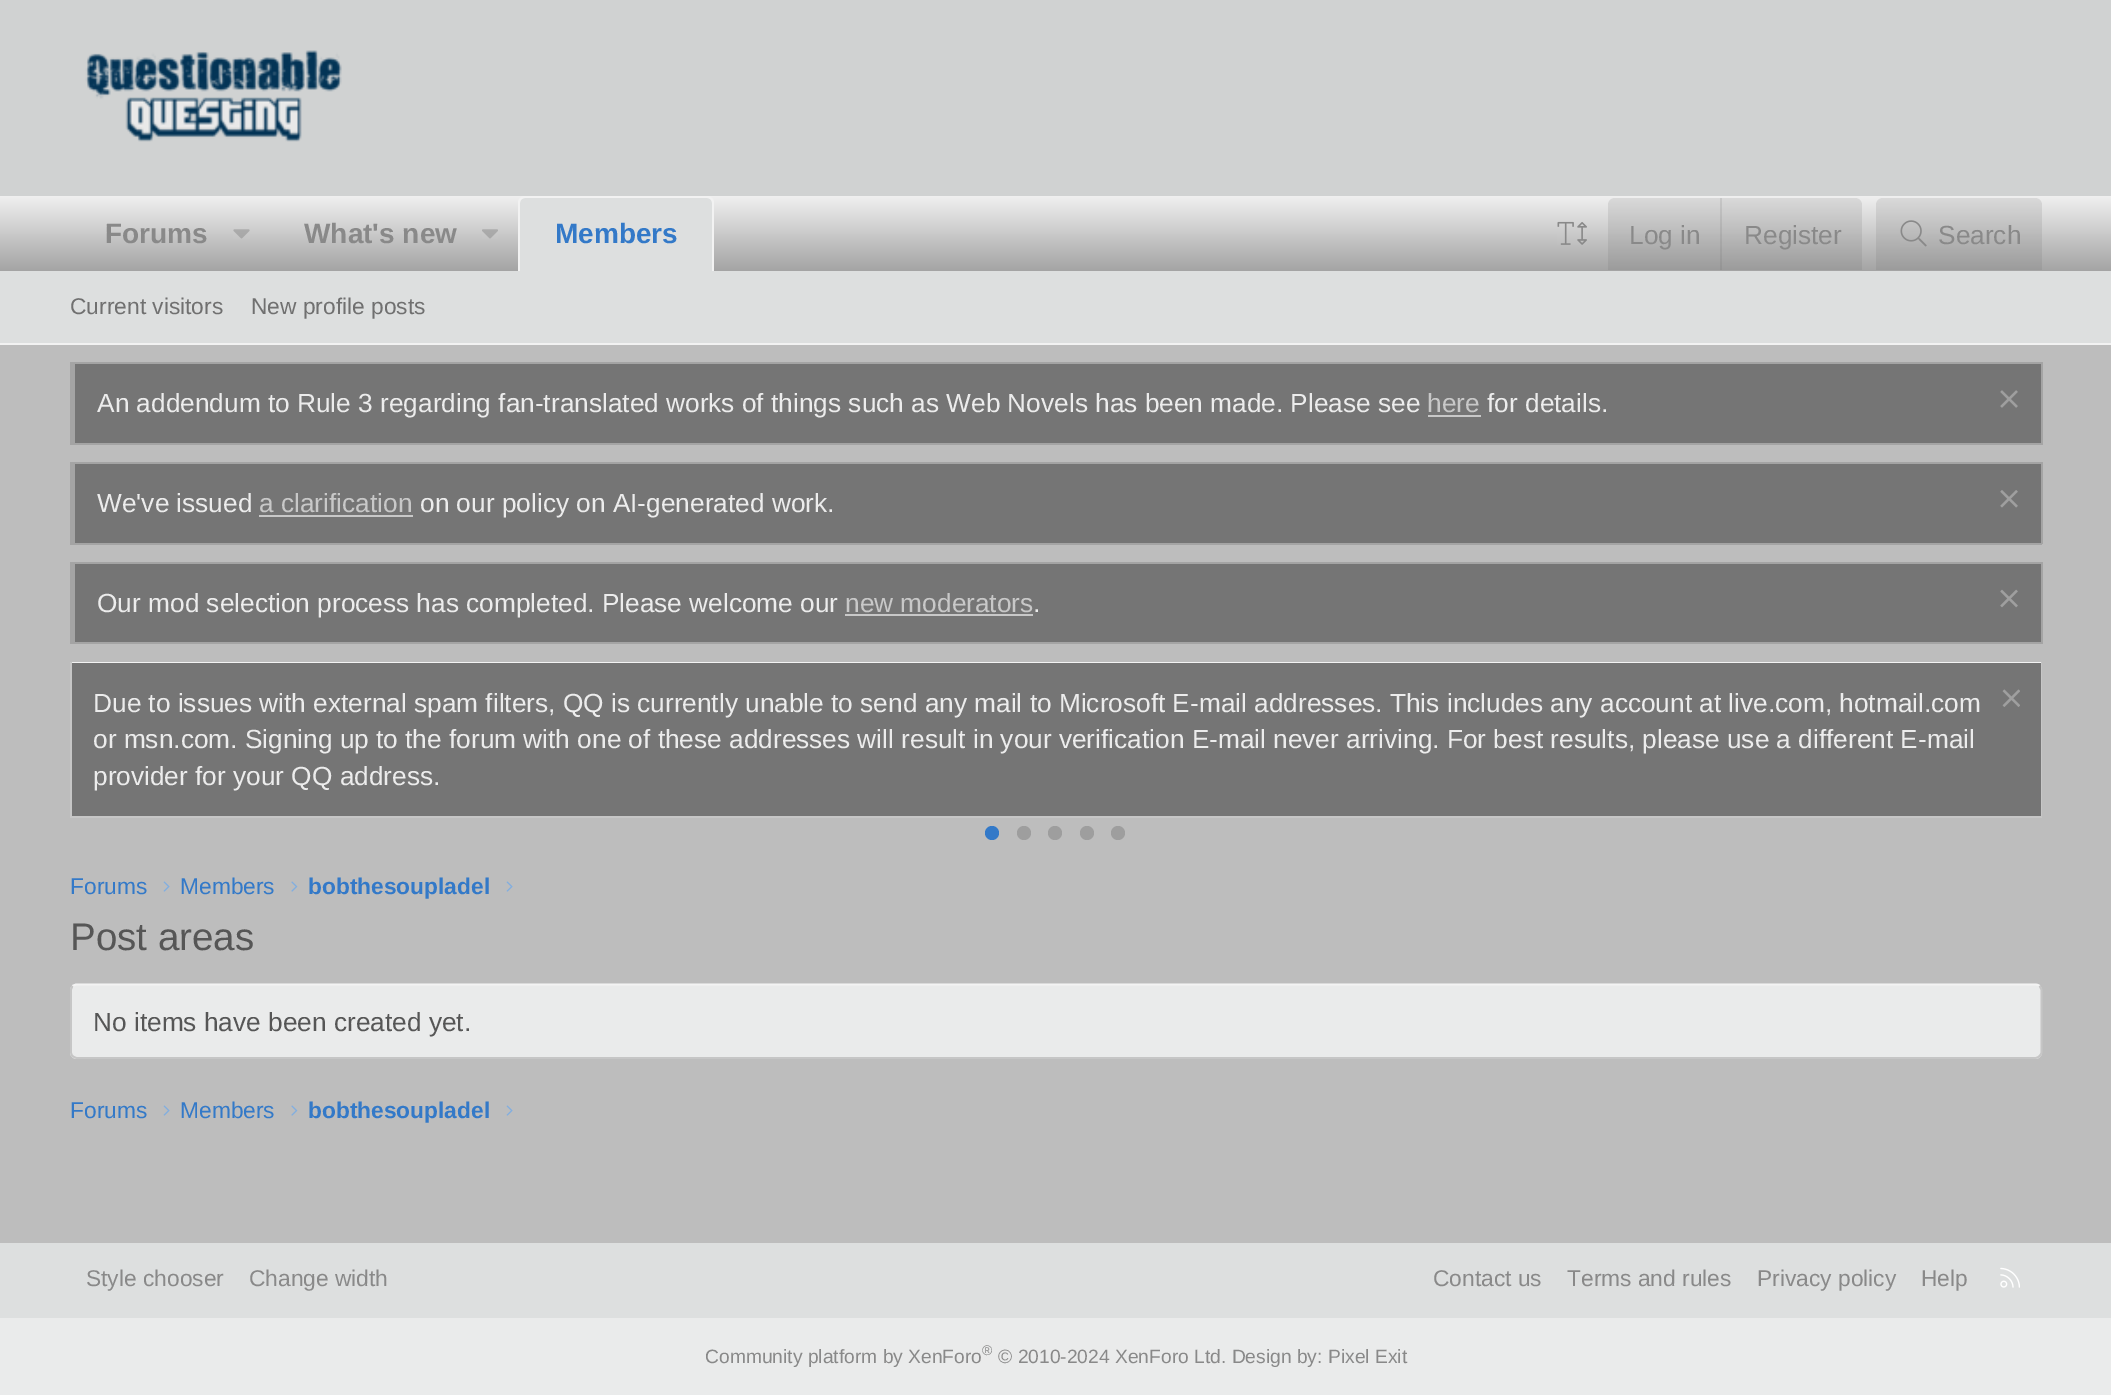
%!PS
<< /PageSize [2111 1395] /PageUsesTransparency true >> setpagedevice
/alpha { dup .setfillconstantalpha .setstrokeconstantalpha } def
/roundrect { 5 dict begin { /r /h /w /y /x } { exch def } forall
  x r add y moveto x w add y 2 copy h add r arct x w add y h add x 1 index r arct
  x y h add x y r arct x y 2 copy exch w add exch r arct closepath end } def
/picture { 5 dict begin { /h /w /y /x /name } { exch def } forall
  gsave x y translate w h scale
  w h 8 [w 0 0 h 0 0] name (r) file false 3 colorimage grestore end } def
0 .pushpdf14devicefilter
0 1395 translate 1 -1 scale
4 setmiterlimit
0.741 setgray
0 0 2111 1395 rectfill
0.816 0.824 0.824 setrgbcolor
0 0 2111 196 rectfill
(img1.rgb) 85 50 257 92 picture
gsave newpath 0 196 moveto 2111 196 lineto 2111 271 lineto 0 271 lineto closepath clip newpath
<< /ShadingType 2 /ColorSpace /DeviceRGB /Coords [1056 196 1056 271] /Extend [true true] /Function << /FunctionType 2 /Domain [0 1] /C0 [0.941 0.941 0.941] /C1 [0.643 0.643 0.643] /N 1 >> >> shfill grestore
/LiberationSans-Bold [28 0 0 -28 0 0] selectfont
0.537 setgray
105 243 moveto (Forums) show
(img2.rgb) 233 229 17 10 picture
304 243 moveto (What's new) show
(img3.rgb) 482 229 16 10 picture
0.867 0.875 0.875 setrgbcolor
newpath 525 198 moveto 707 198 lineto 710 198 712 200 712 203 curveto 712 271 lineto 520 271 lineto 520 203 lineto 520 200 522 198 525 198 curveto closepath fill
0.949 setgray
newpath 525 196 moveto 707 196 lineto 711 196 714 199 714 203 curveto 714 271 lineto 518 271 lineto 518 203 lineto 518 199 521 196 525 196 curveto closepath 525 198 moveto 707 198 lineto 710 198 712 200 712 203 curveto 712 271 lineto 520 271 lineto 520 203 lineto 520 200 522 198 525 198 curveto closepath eofill
0.2 0.475 0.784 setrgbcolor
555 243 moveto (Members) show
(img4.rgb) 1557 221 30 24 picture
0.15 alpha
0.392 setgray
newpath 1615 198 moveto 1855 198 lineto 1859 198 1862 201 1862 205 curveto 1862 270 lineto 1608 270 lineto 1608 205 lineto 1608 201 1611 198 1615 198 curveto closepath fill
/LiberationSans-Regular [26.25 0 0 -26.25 0 0] selectfont
1 alpha
0.537 setgray
1629 244 moveto (Log in) show
0.15 alpha
0.392 setgray
1720 198 2 72 rectfill
1 alpha
0.537 setgray
1744 244 moveto (Register) show
0.15 alpha
0.392 setgray
newpath 1883 198 moveto 2035 198 lineto 2039 198 2042 201 2042 205 curveto 2042 270 lineto 1876 270 lineto 1876 205 lineto 1876 201 1879 198 1883 198 curveto closepath fill
1 alpha
(img5.rgb) 1900 220 27 27 picture
0.537 setgray
1938 244 moveto (Search) show
0.867 0.875 0.875 setrgbcolor
0 271 2111 72 rectfill
0.949 setgray
0 343 2111 2 rectfill
/LiberationSans-Regular [22.75 0 0 -22.75 0 0] selectfont
0.439 setgray
70 314 moveto (Current visitors) show
251 314 moveto (New profile posts) show
0.459 setgray
75 364 1966 79 rectfill
0.643 setgray
70 362 1972 2 rectfill
2041 362 2 83 rectfill
70 443 1972 2 rectfill
70 362 5 83 rectfill
/LiberationSans-Regular [26.25 0 0 -26.25 0 0] selectfont
0.925 setgray
97 412 moveto (An addendum to Rule 3 regarding fan-translated works of things such as Web Novels has been made. Please see) show
0.784 setgray
1427 412 moveto (here) show
1428 415 53 2 rectfill
0.925 setgray
1487 412 moveto (for details.) show
(img6.rgb) 2000 390 18 18 picture
0.459 setgray
75 464 1966 79 rectfill
0.643 setgray
70 462 1972 2 rectfill
2041 462 2 82 rectfill
70 543 1972 2 rectfill
70 462 5 82 rectfill
0.925 setgray
97 512 moveto (We've issued) show
0.784 setgray
259 512 moveto (a clarification) show
259 515 154 2 rectfill
0.925 setgray
420 512 moveto (on our policy on AI-generated work.) show
(img7.rgb) 2000 490 18 18 picture
0.459 setgray
75 564 1966 78 rectfill
0.643 setgray
70 562 1972 2 rectfill
2041 562 2 82 rectfill
70 642 1972 2 rectfill
70 562 5 82 rectfill
0.925 setgray
97 612 moveto (Our mod selection process has completed. Please welcome our) show
0.784 setgray
845 612 moveto (new moderators) show
845 614 188 2 rectfill
0.925 setgray
1033 612 moveto (.) show
(img8.rgb) 2000 589 18 19 picture
0.953 setgray
70 662 1972 1 rectfill
0.776 setgray
2041 662 1 155 rectfill
70 816 1972 2 rectfill
70 662 2 155 rectfill
0.459 setgray
72 663 1969 153 rectfill
0.925 setgray
93 712 moveto (Due to issues with external spam filters, QQ is currently unable to send any mail to Microsoft E-mail addresses. This includes any account at live.com, hotmail.com) show
(img9.rgb) 2002 689 18 18 picture
93 748 moveto (or msn.com. Signing up to the forum with one of these addresses will result in your verification E-mail never arriving. For best results, please use a different E-mail) show
93 785 moveto (provider for your QQ address.) show
0.2 0.475 0.784 setrgbcolor
newpath 992 833 7 0 360 arc closepath fill
0.62 setgray
newpath 1024 833 7 0 360 arc closepath fill
newpath 1055 833 7 0 360 arc closepath fill
newpath 1087 833 7 0 360 arc closepath fill
newpath 1118 833 7 0 360 arc closepath fill
/LiberationSans-Regular [22.75 0 0 -22.75 0 0] selectfont
0.2 0.475 0.784 setrgbcolor
70 894 moveto (Forums) show
(img10.rgb) 163 881 7 11 picture
180 894 moveto (Members) show
(img11.rgb) 291 881 7 11 picture
/LiberationSans-Bold [22.75 0 0 -22.75 0 0] selectfont
308 894 moveto (bobthesoupladel) show
(img10.rgb) 506 881 7 11 picture
/LiberationSans-Regular [38.5 0 0 -38.5 0 0] selectfont
0.337 setgray
70 950 moveto (Post areas) show
0.918 0.922 0.922 setrgbcolor
70 984 1972 75 7 roundrect fill
0.953 setgray
1.8 setlinewidth
newpath 72.5 986 moveto 74 985 75.5 984.5 77 984.5 curveto 2035 984.5 lineto 2037 984.5 2038.5 985 2039.5 986 curveto stroke
0.776 setgray
newpath 2039.5 986 moveto 2040.5 987.5 2041.5 989 2041.5 990.5 curveto 2041.5 1052 lineto 2041.5 1053.5 2040.5 1055 2039.5 1056 curveto 2038.5 1057 2037 1058 2035 1058 curveto 77 1058 lineto 75.5 1058 74 1057 72.5 1056 curveto 71.5 1055 71 1053.5 71 1052 curveto 71 990.5 lineto 71 989 71.5 987.5 72.5 986 curveto stroke
/LiberationSans-Regular [26.25 0 0 -26.25 0 0] selectfont
0.337 setgray
93 1031 moveto (No items have been created yet.) show
/LiberationSans-Regular [22.75 0 0 -22.75 0 0] selectfont
0.2 0.475 0.784 setrgbcolor
70 1118 moveto (Forums) show
(img10.rgb) 163 1105 7 11 picture
180 1118 moveto (Members) show
(img11.rgb) 291 1105 7 11 picture
/LiberationSans-Bold [22.75 0 0 -22.75 0 0] selectfont
308 1118 moveto (bobthesoupladel) show
(img10.rgb) 506 1105 7 11 picture
0.867 0.875 0.875 setrgbcolor
0 1243 2111 75 rectfill
/LiberationSans-Regular [22.75 0 0 -22.75 0 0] selectfont
0.537 setgray
86 1286 moveto (Style chooser) show
249 1286 moveto (Change width) show
1433 1286 moveto (Contact us) show
1567 1286 moveto (Terms and rules) show
1757 1286 moveto (Privacy policy) show
1921 1286 moveto (Help) show
(img12.rgb) 2000 1267 20 21 picture
0.918 0.922 0.922 setrgbcolor
0 1318 2111 77 rectfill
/LiberationSans-Regular [19.25 0 0 -19.25 0 0] selectfont
0.537 setgray
705 1363 moveto (Community platform by XenForo) show
/LiberationSans-Regular [14 0 0 -14 0 0] selectfont
982 1355 moveto (®) show
/LiberationSans-Regular [19.25 0 0 -19.25 0 0] selectfont
998 1363 moveto (© 2010-2024 XenForo Ltd. Design by: Pixel Exit) show
.poppdf14devicefilter showpage
